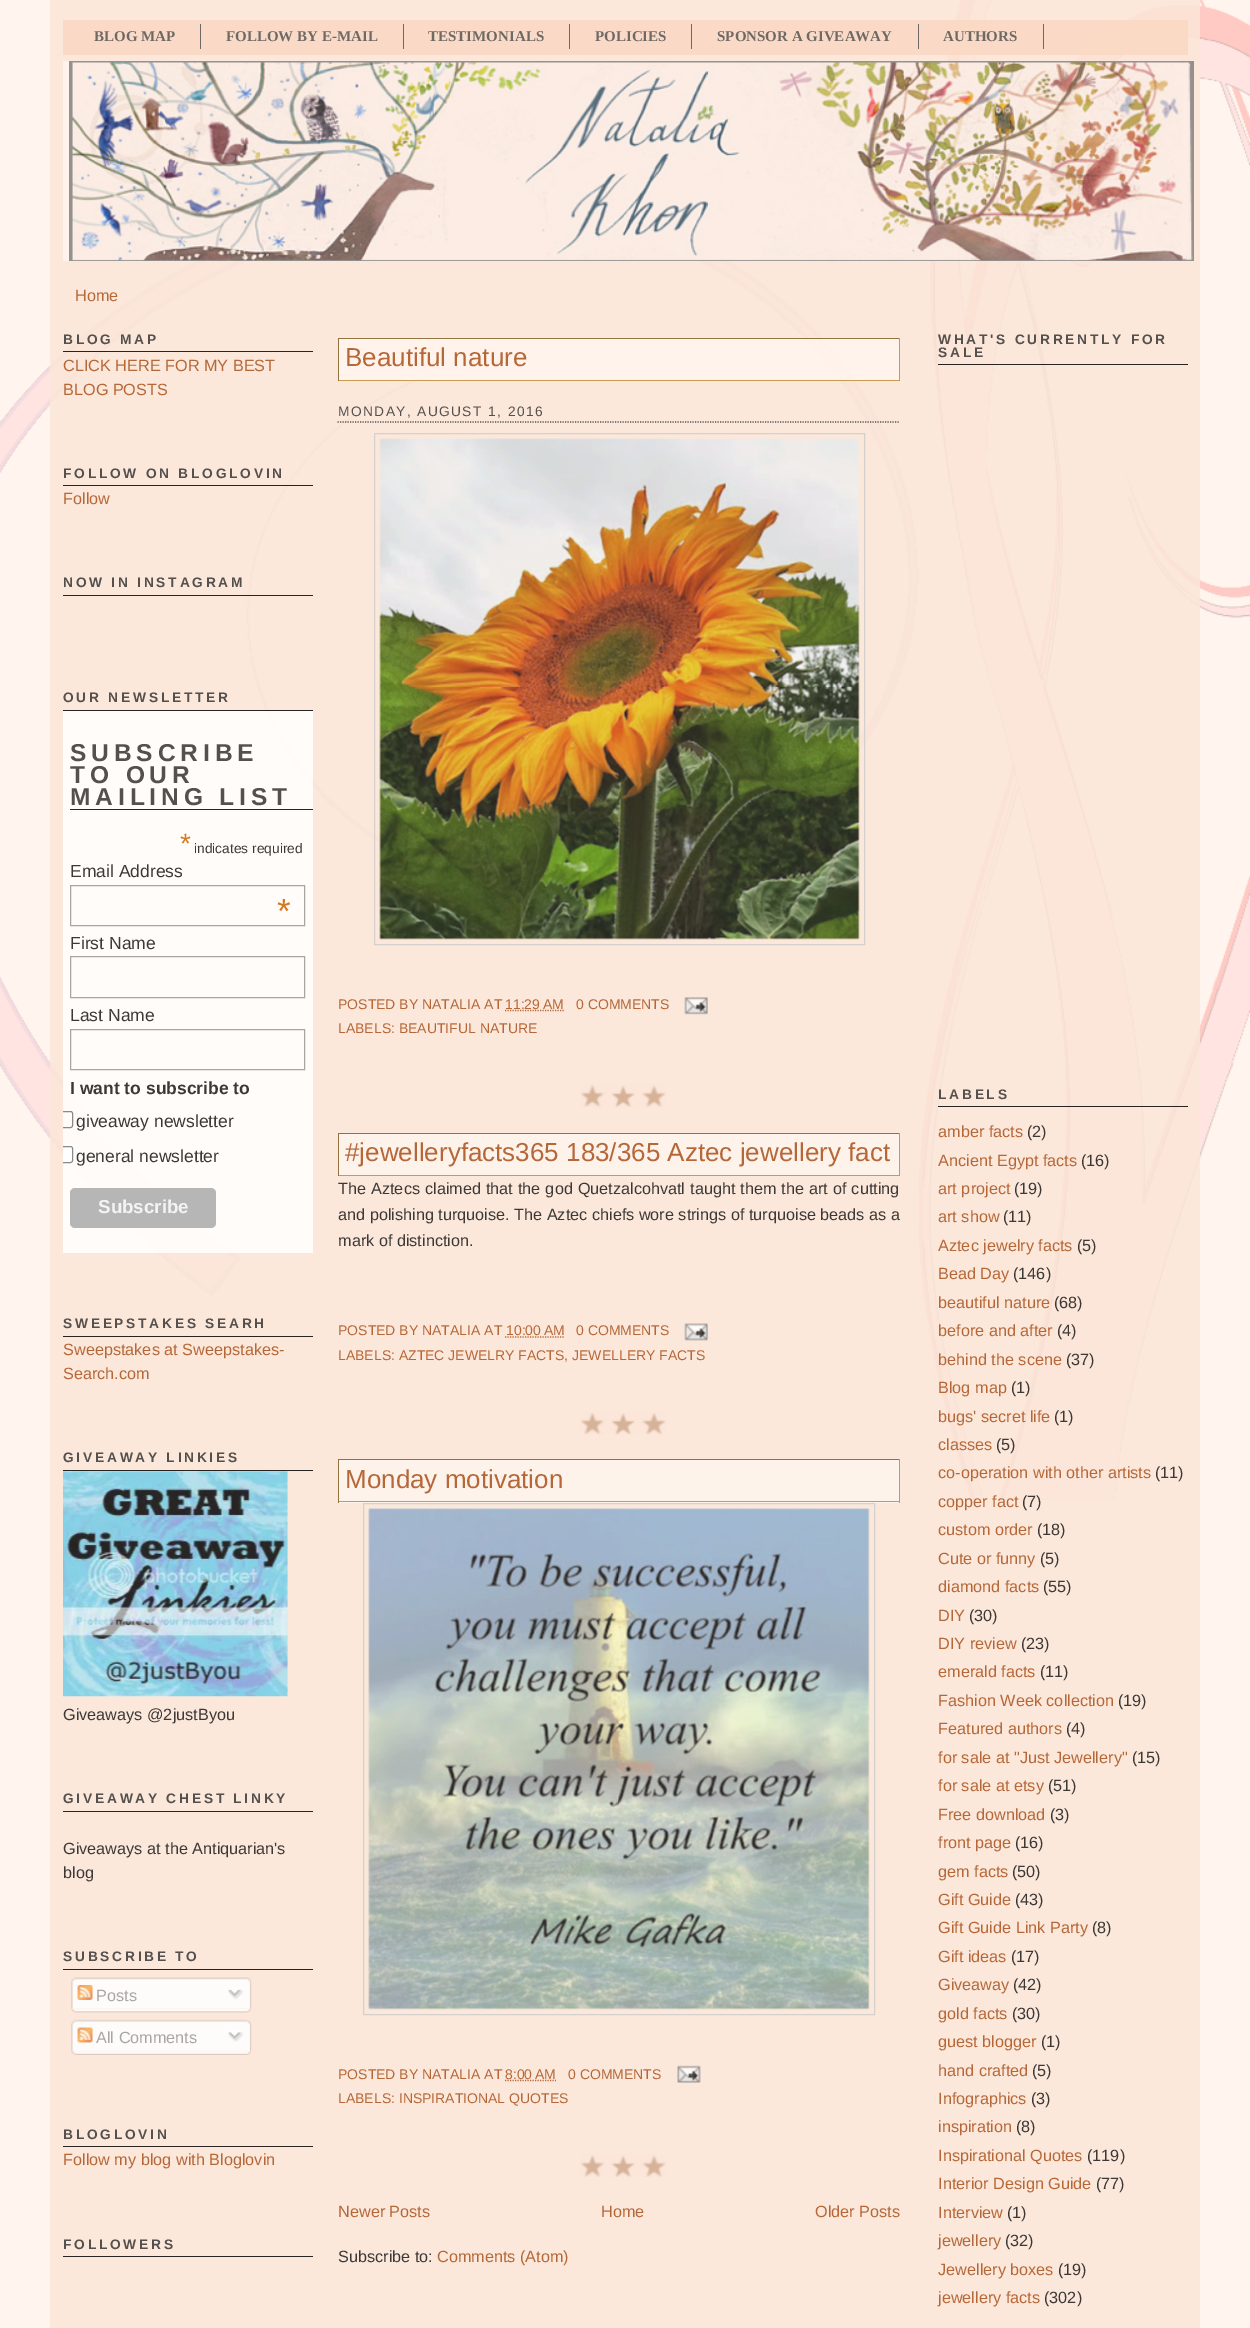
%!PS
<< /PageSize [1250 2328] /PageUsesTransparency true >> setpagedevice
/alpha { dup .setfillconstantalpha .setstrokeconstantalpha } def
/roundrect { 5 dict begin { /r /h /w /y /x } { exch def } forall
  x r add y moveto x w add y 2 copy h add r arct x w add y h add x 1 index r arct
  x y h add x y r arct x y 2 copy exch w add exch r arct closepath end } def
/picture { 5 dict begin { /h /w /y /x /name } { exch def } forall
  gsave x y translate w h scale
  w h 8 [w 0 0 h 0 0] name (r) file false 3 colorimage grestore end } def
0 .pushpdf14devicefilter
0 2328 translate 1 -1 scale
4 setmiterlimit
1 0.961 0.933 setrgbcolor
0 0 1250 2328 rectfill
0.988 0.91 0.859 setrgbcolor
50 1499 1150 829 rectfill
(img1.rgb) 0 0 1250 1501 picture
0.85 alpha
0.98 0.847 0.761 setrgbcolor
63 20 1125 35 rectfill
/LiberationSerif-Bold [15 0 0 -15 0 0] selectfont
1 alpha
0.431 0.412 0.396 setrgbcolor
94 41 moveto (BLOG MAP) show
200 24 1 25 rectfill
226 41 moveto (FOLLOW BY E-MAIL) show
403 24 1 25 rectfill
428 41 moveto (TESTIMONIALS) show
569 24 1 25 rectfill
595 41 moveto (POLICIES) show
691 24 1 25 rectfill
717 41 moveto (SPONSOR A GIVEAWAY) show
918 24 1 25 rectfill
943 41 moveto (AUTHORS) show
1043 24 1 25 rectfill
0.85 alpha
1 0.961 0.933 setrgbcolor
63 61 1125 200 rectfill
1 alpha
(img2.rgb) 89 66 119 118 picture
(img3.rgb) 69 61 1125 200 picture
/LiberationSans-Regular [16.25 0 0 -16.25 0 0] selectfont
0.71 0.404 0.22 setrgbcolor
75 301 moveto (Home) show
0.85 alpha
0 setgray
63 351 250 1 rectfill
/LiberationSans-Bold [13.75 0 0 -13.75 0 0] selectfont
1 alpha
0.329 0.314 0.302 setrgbcolor
63 344 moveto 2.75 0 (BLOG MAP) ashow
/LiberationSans-Regular [16.25 0 0 -16.25 0 0] selectfont
0.71 0.404 0.22 setrgbcolor
63 371 moveto (CLICK HERE FOR MY BEST) show
63 395 moveto (BLOG POSTS) show
0.85 alpha
0 setgray
63 485 250 1 rectfill
/LiberationSans-Bold [13.75 0 0 -13.75 0 0] selectfont
1 alpha
0.329 0.314 0.302 setrgbcolor
63 478 moveto 2.75 0 (FOLLOW ON BLOGLOVIN) ashow
/LiberationSans-Regular [16.25 0 0 -16.25 0 0] selectfont
0.71 0.404 0.22 setrgbcolor
63 504 moveto (Follow) show
0.85 alpha
0 setgray
63 595 250 1 rectfill
/LiberationSans-Bold [13.75 0 0 -13.75 0 0] selectfont
1 alpha
0.329 0.314 0.302 setrgbcolor
63 587 moveto 2.75 0 (NOW IN INSTAGRAM) ashow
0.85 alpha
0 setgray
63 710 250 1 rectfill
1 alpha
0.329 0.314 0.302 setrgbcolor
63 702 moveto 2.75 0 (OUR NEWSLETTER) ashow
0.85 alpha
1 setgray
63 711 250 542 rectfill
1 alpha
0.149 0.137 0.129 setrgbcolor
70 809 243 1 rectfill
/LiberationSans-Bold [24.5 0 0 -24.5 0 0] selectfont
0.329 0.314 0.302 setrgbcolor
70 761 moveto 4.9 0 (SUBSCRIBE) ashow
70 783 moveto 4.9 0 (TO OUR) ashow
70 805 moveto 4.9 0 (MAILING LIST) ashow
/LiberationSans-Regular [28 0 0 -28 0 0] selectfont
0.827 0.478 0.129 setrgbcolor
180 853 moveto (*) show
/LiberationSans-Regular [13.75 0 0 -13.75 0 0] selectfont
0.231 0.22 0.212 setrgbcolor
194 853 moveto (indicates required) show
/LiberationSans-Regular [17.5 0 0 -17.5 0 0] selectfont
70 877 moveto (Email Address) show
0.659 0.647 0.639 setrgbcolor
70.5 885.5 234 40 rectstroke
/LiberationSans-Regular [35 0 0 -35 0 0] selectfont
0.827 0.478 0.129 setrgbcolor
277 923 moveto (*) show
/LiberationSans-Regular [17.5 0 0 -17.5 0 0] selectfont
0.231 0.22 0.212 setrgbcolor
70 949 moveto (First Name) show
0.659 0.647 0.639 setrgbcolor
70.5 956.5 234 41 rectstroke
0.231 0.22 0.212 setrgbcolor
70 1021 moveto (Last Name) show
0.659 0.647 0.639 setrgbcolor
70.5 1029.5 234 40 rectstroke
/LiberationSans-Bold [17.5 0 0 -17.5 0 0] selectfont
0.231 0.22 0.212 setrgbcolor
70 1094 moveto (I want to subscribe to) show
gsave
63 318 250 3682 rectclip
0.541 0.529 0.522 setrgbcolor
56.5 1111.5 16 16 2 roundrect stroke
grestore
/LiberationSans-Regular [17.5 0 0 -17.5 0 0] selectfont
76 1127 moveto (giveaway newsletter) show
1 0.996 0.996 setrgbcolor
newpath 63 1146 moveto 70.5 1146 lineto 72 1146 73 1147 73 1148.5 curveto 73 1160.5 lineto 73 1162 72 1163 70.5 1163 curveto 63 1163 lineto closepath fill
gsave
63 318 250 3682 rectclip
0.545 0.541 0.541 setrgbcolor
56.5 1146.5 16 16 2 roundrect stroke
grestore
0.231 0.22 0.212 setrgbcolor
76 1162 moveto (general newsletter) show
0.718 0.714 0.714 setrgbcolor
70 1188 146 40 5 roundrect fill
/LiberationSans-Bold [18.75 0 0 -18.75 0 0] selectfont
0.957 setgray
98 1213 moveto (Subscribe) show
0.149 0.137 0.129 setrgbcolor
63 1336 250 1 rectfill
/LiberationSans-Bold [13.75 0 0 -13.75 0 0] selectfont
0.329 0.314 0.302 setrgbcolor
63 1328 moveto 2.75 0 (SWEEPSTAKES SEARH) ashow
/LiberationSans-Regular [16.25 0 0 -16.25 0 0] selectfont
0.71 0.404 0.22 setrgbcolor
63 1355 moveto (Sweepstakes at Sweepstakes-) show
63 1379 moveto (Search.com) show
0.149 0.137 0.129 setrgbcolor
63 1470 250 1 rectfill
/LiberationSans-Bold [13.75 0 0 -13.75 0 0] selectfont
0.329 0.314 0.302 setrgbcolor
63 1462 moveto 2.75 0 (GIVEAWAY LINKIES) ashow
(img4.rgb) 63 1471 225 226 picture
/LiberationSans-Regular [16.25 0 0 -16.25 0 0] selectfont
0.231 0.22 0.212 setrgbcolor
63 1720 moveto (Giveaways @2justByou) show
0.149 0.137 0.129 setrgbcolor
63 1811 250 1 rectfill
/LiberationSans-Bold [13.75 0 0 -13.75 0 0] selectfont
0.329 0.314 0.302 setrgbcolor
63 1803 moveto 2.75 0 (GIVEAWAY CHEST LINKY) ashow
/LiberationSans-Regular [16.25 0 0 -16.25 0 0] selectfont
0.231 0.22 0.212 setrgbcolor
63 1854 moveto (Giveaways at the Antiquarian's) show
63 1878 moveto (blog) show
0.149 0.137 0.129 setrgbcolor
63 1969 250 1 rectfill
/LiberationSans-Bold [13.75 0 0 -13.75 0 0] selectfont
0.329 0.314 0.302 setrgbcolor
63 1961 moveto 2.75 0 (SUBSCRIBE TO) ashow
(img5.rgb) 71 1977 181 33 picture
(img6.rgb) 77 1985 16 15 picture
/LiberationSans-Regular [16.25 0 0 -16.25 0 0] selectfont
0.659 0.647 0.639 setrgbcolor
96 2001 moveto (Posts) show
(img7.rgb) 228 1988 16 12 picture
(img8.rgb) 71 2009 181 4 picture
(img9.rgb) 71 2019 181 33 picture
(img10.rgb) 77 2027 16 16 picture
96 2043 moveto (All Comments) show
(img11.rgb) 228 2030 16 12 picture
(img12.rgb) 71 2051 180 4 picture
0.149 0.137 0.129 setrgbcolor
63 2146 250 1 rectfill
/LiberationSans-Bold [13.75 0 0 -13.75 0 0] selectfont
0.329 0.314 0.302 setrgbcolor
63 2139 moveto 2.75 0 (BLOGLOVIN) ashow
/LiberationSans-Regular [16.25 0 0 -16.25 0 0] selectfont
0.71 0.404 0.22 setrgbcolor
63 2165 moveto (Follow my blog with Bloglovin) show
0.149 0.137 0.129 setrgbcolor
63 2256 250 1 rectfill
/LiberationSans-Bold [13.75 0 0 -13.75 0 0] selectfont
0.329 0.314 0.302 setrgbcolor
63 2249 moveto 2.75 0 (FOLLOWERS) ashow
(img13.rgb) 580 1084 86 24 picture
0.85 alpha
1 0.961 0.933 setrgbcolor
339 339 560 42 rectfill
1 alpha
0.573 0.455 0.251 setrgbcolor
338 338 562 1 rectfill
0.784 0.604 0.298 setrgbcolor
899 338 1 43 rectfill
0.85 alpha
0.749 0.549 0.2 setrgbcolor
338 380 562 1 rectfill
1 alpha
0.573 0.447 0.243 setrgbcolor
338 338 1 43 rectfill
/LiberationSans-Regular [26 0 0 -26 0 0] selectfont
0.71 0.404 0.22 setrgbcolor
345 366 moveto (Beautiful nature) show
0.85 alpha
0.212 0.208 0.204 setrgbcolor
1.2 setlinewidth
[1.25 1.25] 0 setdash
newpath 337.5 422 moveto 900 422 lineto stroke
/LiberationSans-Regular [13.75 0 0 -13.75 0 0] selectfont
1 alpha
0.329 0.314 0.302 setrgbcolor
338 416 moveto 1.4 0 (MONDAY, AUGUST 1, 2016) ashow
0.85 alpha
0.8 setgray
1 setlinewidth
[] 0 setdash
374.5 433.5 490 511 rectstroke
1 alpha
(img14.rgb) 379 438 481 502 picture
/LiberationSans-Regular [14 0 0 -14 0 0] selectfont
0.71 0.404 0.22 setrgbcolor
338 1009 moveto (POSTED BY NATALIA AT) show
1.2 setlinewidth
[1.25 1.25] 0 setdash
newpath 505 1010.5 moveto 564 1010.5 lineto stroke
505 1009 moveto (11:29 AM) show
576 1009 moveto (0 COMMENTS) show
(img15.rgb) 684 997 24 18 picture
338 1033 moveto (LABELS: BEAUTIFUL NATURE) show
(img16.rgb) 580 1412 86 23 picture
0.996 0.953 0.922 setrgbcolor
339 1134 560 41 rectfill
0.573 0.447 0.243 setrgbcolor
338 1133 562 1 rectfill
0.784 0.604 0.298 setrgbcolor
899 1133 1 43 rectfill
338 1175 562 1 rectfill
0.573 0.447 0.243 setrgbcolor
338 1133 1 43 rectfill
/LiberationSans-Regular [26 0 0 -26 0 0] selectfont
0.71 0.404 0.22 setrgbcolor
345 1161 moveto (#jewelleryfacts365 183/365 Aztec jewellery fact) show
/LiberationSans-Regular [16.25 0 0 -16.25 0 0] selectfont
0.231 0.22 0.212 setrgbcolor
338 1194 moveto 0.5 0 32 (The Aztecs claimed that the god Quetzalcohvatl taught them the art of cutting) widthshow
338 1220 moveto (and polishing turquoise. The Aztec chiefs wore strings of turquoise beads as a) show
338 1246 moveto (mark of distinction.) show
/LiberationSans-Regular [14 0 0 -14 0 0] selectfont
0.71 0.404 0.22 setrgbcolor
338 1335 moveto (POSTED BY NATALIA AT 10:00 AM) show
576 1335 moveto (0 COMMENTS) show
(img17.rgb) 684 1323 24 18 picture
newpath 505 1337 moveto 564 1337 lineto stroke
338 1360 moveto (LABELS: AZTEC JEWELRY FACTS, JEWELLERY FACTS) show
(img18.rgb) 580 2154 86 23 picture
0.996 0.953 0.922 setrgbcolor
339 1460 560 43 rectfill
0.573 0.447 0.243 setrgbcolor
338 1459 562 1 rectfill
0.784 0.604 0.298 setrgbcolor
899 1459 1 44 rectfill
338 1501 562 1 rectfill
0.573 0.447 0.243 setrgbcolor
338 1459 1 44 rectfill
/LiberationSans-Regular [26 0 0 -26 0 0] selectfont
0.71 0.404 0.22 setrgbcolor
345 1488 moveto (Monday motivation) show
0.827 0.816 0.808 setrgbcolor
1 setlinewidth
[] 0 setdash
363.5 1503.5 511 511 rectstroke
(img19.rgb) 368 1508 502 502 picture
/LiberationSans-Regular [14 0 0 -14 0 0] selectfont
0.71 0.404 0.22 setrgbcolor
338 2079 moveto (POSTED BY NATALIA AT) show
1.2 setlinewidth
[1.25 1.25] 0 setdash
newpath 505 2080.5 moveto 556 2080.5 lineto stroke
505 2079 moveto (8:00 AM) show
568 2079 moveto (0 COMMENTS) show
(img20.rgb) 677 2065 24 18 picture
338 2103 moveto (LABELS: INSPIRATIONAL QUOTES) show
/LiberationSans-Regular [16.25 0 0 -16.25 0 0] selectfont
338 2217 moveto (Newer Posts) show
601 2217 moveto (Home) show
815 2217 moveto (Older Posts) show
0.231 0.22 0.212 setrgbcolor
338 2262 moveto (Subscribe to:) show
0.71 0.404 0.22 setrgbcolor
437 2262 moveto (Comments \(Atom\)) show
0.85 alpha
0 setgray
938 364 250 1 rectfill
/LiberationSans-Bold [13.75 0 0 -13.75 0 0] selectfont
1 alpha
0.329 0.314 0.302 setrgbcolor
938 344 moveto 2.75 0 (WHAT'S CURRENTLY FOR) ashow
938 357 moveto 2.75 0 (SALE) ashow
0.85 alpha
0 setgray
938 1106 250 1 rectfill
1 alpha
0.329 0.314 0.302 setrgbcolor
938 1099 moveto 2.75 0 (LABELS) ashow
/LiberationSans-Regular [16.25 0 0 -16.25 0 0] selectfont
0.71 0.404 0.22 setrgbcolor
938 1137 moveto (amber facts) show
0.231 0.22 0.212 setrgbcolor
1027 1137 moveto (\(2\)) show
0.71 0.404 0.22 setrgbcolor
938 1166 moveto (Ancient Egypt facts) show
0.231 0.22 0.212 setrgbcolor
1081 1166 moveto (\(16\)) show
0.71 0.404 0.22 setrgbcolor
938 1194 moveto (art project) show
0.231 0.22 0.212 setrgbcolor
1014 1194 moveto (\(19\)) show
0.71 0.404 0.22 setrgbcolor
938 1222 moveto (art show) show
0.231 0.22 0.212 setrgbcolor
1003 1222 moveto (\(11\)) show
0.71 0.404 0.22 setrgbcolor
938 1251 moveto (Aztec jewelry facts) show
0.231 0.22 0.212 setrgbcolor
1077 1251 moveto (\(5\)) show
0.71 0.404 0.22 setrgbcolor
938 1279 moveto (Bead Day) show
0.231 0.22 0.212 setrgbcolor
1013 1279 moveto (\(146\)) show
0.71 0.404 0.22 setrgbcolor
938 1308 moveto (beautiful nature) show
0.231 0.22 0.212 setrgbcolor
1054 1308 moveto (\(68\)) show
0.71 0.404 0.22 setrgbcolor
938 1336 moveto (before and after) show
0.231 0.22 0.212 setrgbcolor
1057 1336 moveto (\(4\)) show
0.71 0.404 0.22 setrgbcolor
938 1365 moveto (behind the scene) show
0.231 0.22 0.212 setrgbcolor
1066 1365 moveto (\(37\)) show
0.71 0.404 0.22 setrgbcolor
938 1393 moveto (Blog map) show
0.231 0.22 0.212 setrgbcolor
1011 1393 moveto (\(1\)) show
0.71 0.404 0.22 setrgbcolor
938 1422 moveto (bugs' secret life) show
0.231 0.22 0.212 setrgbcolor
1054 1422 moveto (\(1\)) show
0.71 0.404 0.22 setrgbcolor
938 1450 moveto (classes) show
0.231 0.22 0.212 setrgbcolor
996 1450 moveto (\(5\)) show
0.71 0.404 0.22 setrgbcolor
938 1478 moveto (co-operation with other artists) show
0.231 0.22 0.212 setrgbcolor
1155 1478 moveto (\(11\)) show
0.71 0.404 0.22 setrgbcolor
938 1507 moveto (copper fact) show
0.231 0.22 0.212 setrgbcolor
1022 1507 moveto (\(7\)) show
0.71 0.404 0.22 setrgbcolor
938 1535 moveto (custom order) show
0.231 0.22 0.212 setrgbcolor
1037 1535 moveto (\(18\)) show
0.71 0.404 0.22 setrgbcolor
938 1564 moveto (Cute or funny) show
0.231 0.22 0.212 setrgbcolor
1040 1564 moveto (\(5\)) show
0.71 0.404 0.22 setrgbcolor
938 1592 moveto (diamond facts) show
0.231 0.22 0.212 setrgbcolor
1043 1592 moveto (\(55\)) show
0.71 0.404 0.22 setrgbcolor
938 1621 moveto (DIY) show
0.231 0.22 0.212 setrgbcolor
969 1621 moveto (\(30\)) show
0.71 0.404 0.22 setrgbcolor
938 1649 moveto (DIY review) show
0.231 0.22 0.212 setrgbcolor
1021 1649 moveto (\(23\)) show
0.71 0.404 0.22 setrgbcolor
938 1677 moveto (emerald facts) show
0.231 0.22 0.212 setrgbcolor
1040 1677 moveto (\(11\)) show
0.71 0.404 0.22 setrgbcolor
938 1706 moveto (Fashion Week collection) show
0.231 0.22 0.212 setrgbcolor
1118 1706 moveto (\(19\)) show
0.71 0.404 0.22 setrgbcolor
938 1734 moveto (Featured authors) show
0.231 0.22 0.212 setrgbcolor
1066 1734 moveto (\(4\)) show
0.71 0.404 0.22 setrgbcolor
938 1763 moveto (for sale at "Just Jewellery") show
0.231 0.22 0.212 setrgbcolor
1132 1763 moveto (\(15\)) show
0.71 0.404 0.22 setrgbcolor
938 1791 moveto (for sale at etsy) show
0.231 0.22 0.212 setrgbcolor
1048 1791 moveto (\(51\)) show
0.71 0.404 0.22 setrgbcolor
938 1820 moveto (Free download) show
0.231 0.22 0.212 setrgbcolor
1050 1820 moveto (\(3\)) show
0.71 0.404 0.22 setrgbcolor
938 1848 moveto (front page) show
0.231 0.22 0.212 setrgbcolor
1015 1848 moveto (\(16\)) show
0.71 0.404 0.22 setrgbcolor
938 1877 moveto (gem facts) show
0.231 0.22 0.212 setrgbcolor
1012 1877 moveto (\(50\)) show
0.71 0.404 0.22 setrgbcolor
938 1905 moveto (Gift Guide) show
0.231 0.22 0.212 setrgbcolor
1015 1905 moveto (\(43\)) show
0.71 0.404 0.22 setrgbcolor
938 1933 moveto (Gift Guide Link Party) show
0.231 0.22 0.212 setrgbcolor
1092 1933 moveto (\(8\)) show
0.71 0.404 0.22 setrgbcolor
938 1962 moveto (Gift ideas) show
0.231 0.22 0.212 setrgbcolor
1011 1962 moveto (\(17\)) show
0.71 0.404 0.22 setrgbcolor
938 1990 moveto (Giveaway) show
0.231 0.22 0.212 setrgbcolor
1013 1990 moveto (\(42\)) show
0.71 0.404 0.22 setrgbcolor
938 2019 moveto (gold facts) show
0.231 0.22 0.212 setrgbcolor
1012 2019 moveto (\(30\)) show
0.71 0.404 0.22 setrgbcolor
938 2047 moveto (guest blogger) show
0.231 0.22 0.212 setrgbcolor
1041 2047 moveto (\(1\)) show
0.71 0.404 0.22 setrgbcolor
938 2076 moveto (hand crafted) show
0.231 0.22 0.212 setrgbcolor
1032 2076 moveto (\(5\)) show
0.71 0.404 0.22 setrgbcolor
938 2104 moveto (Infographics) show
0.231 0.22 0.212 setrgbcolor
1031 2104 moveto (\(3\)) show
0.71 0.404 0.22 setrgbcolor
938 2132 moveto (inspiration) show
0.231 0.22 0.212 setrgbcolor
1016 2132 moveto (\(8\)) show
0.71 0.404 0.22 setrgbcolor
938 2161 moveto (Inspirational Quotes) show
0.231 0.22 0.212 setrgbcolor
1087 2161 moveto (\(119\)) show
0.71 0.404 0.22 setrgbcolor
938 2189 moveto (Interior Design Guide) show
0.231 0.22 0.212 setrgbcolor
1096 2189 moveto (\(77\)) show
0.71 0.404 0.22 setrgbcolor
938 2218 moveto (Interview) show
0.231 0.22 0.212 setrgbcolor
1007 2218 moveto (\(1\)) show
0.71 0.404 0.22 setrgbcolor
938 2246 moveto (jewellery) show
0.231 0.22 0.212 setrgbcolor
1005 2246 moveto (\(32\)) show
0.71 0.404 0.22 setrgbcolor
938 2275 moveto (Jewellery boxes) show
0.231 0.22 0.212 setrgbcolor
1058 2275 moveto (\(19\)) show
0.71 0.404 0.22 setrgbcolor
938 2303 moveto (jewellery facts) show
0.231 0.22 0.212 setrgbcolor
1044 2303 moveto (\(302\)) show
.poppdf14devicefilter showpage
